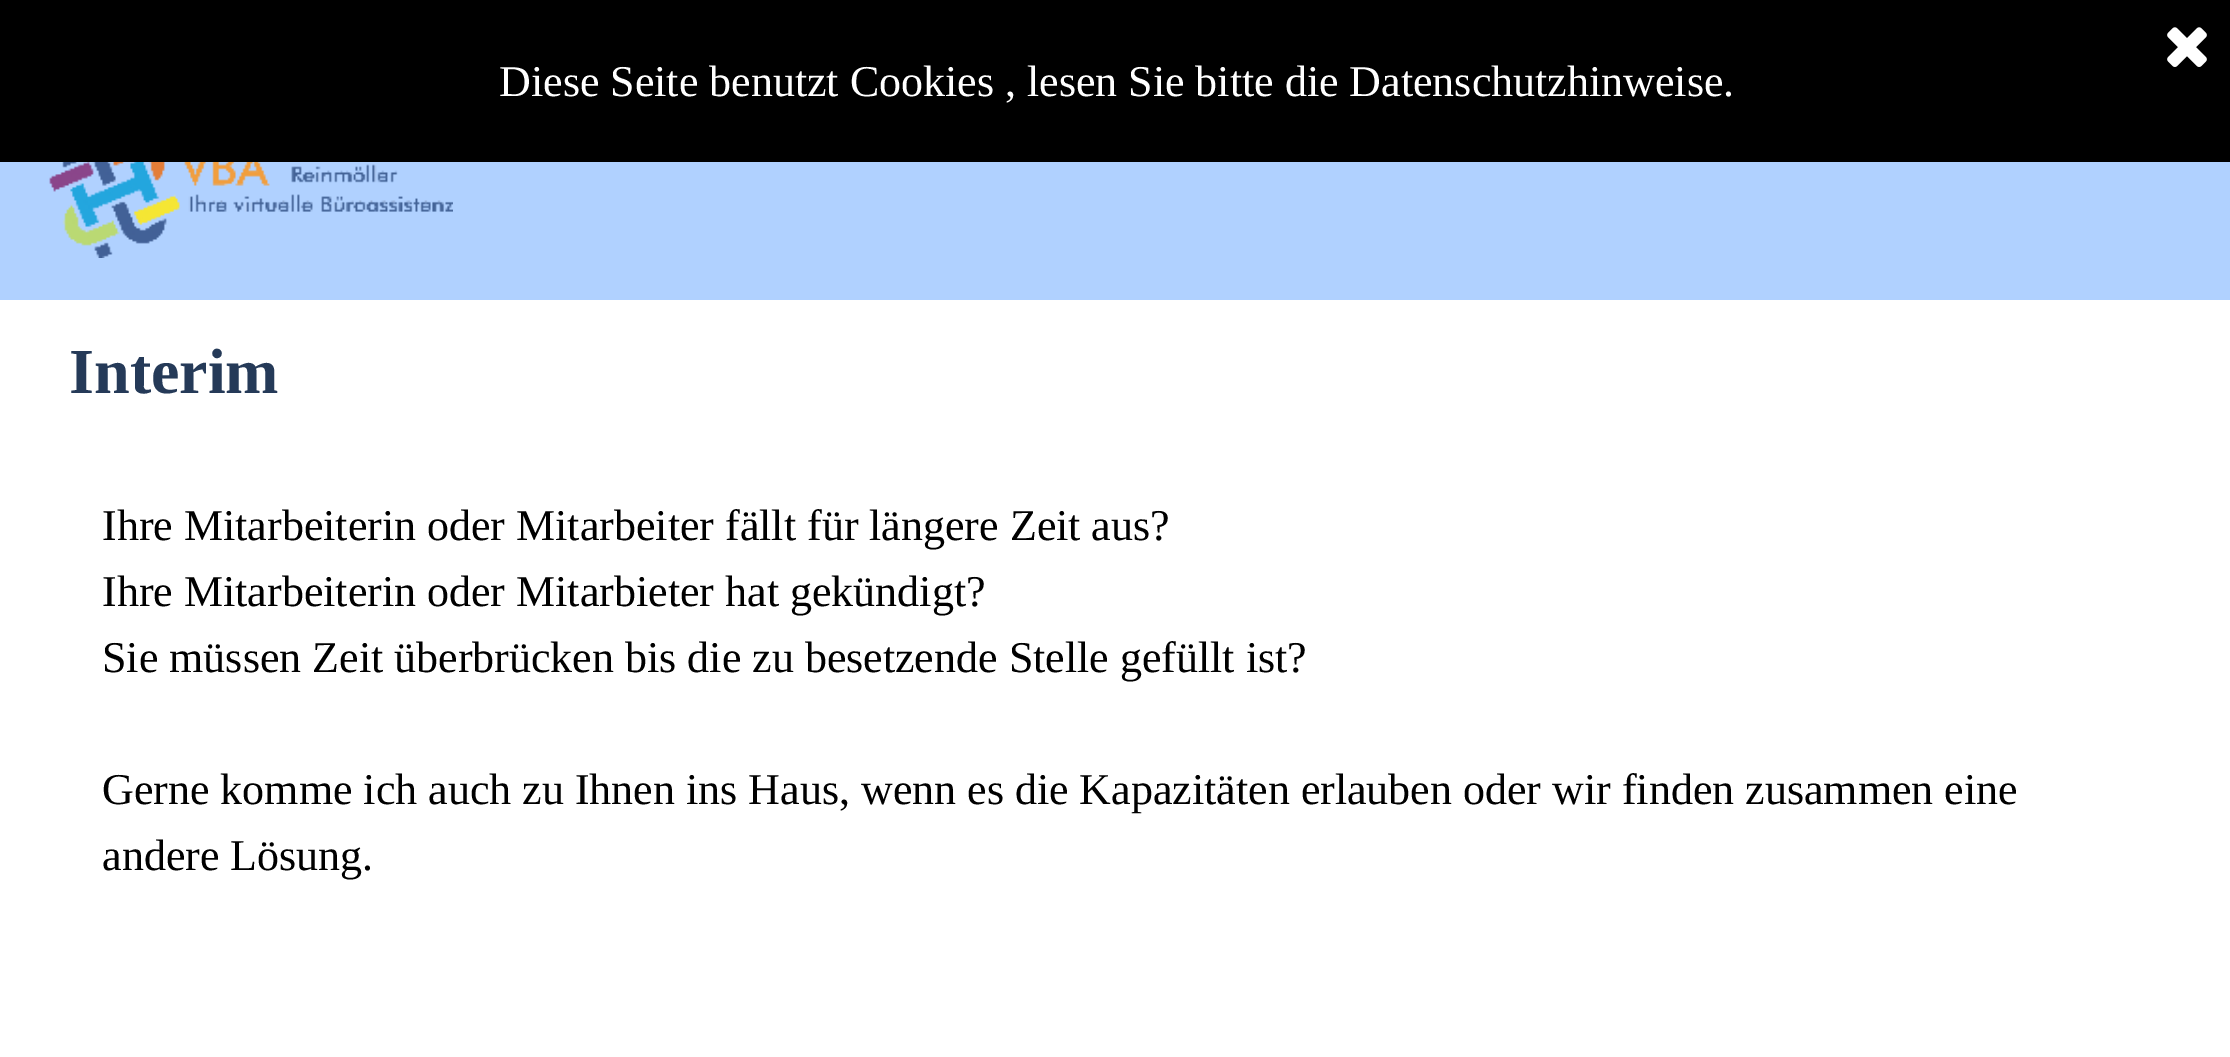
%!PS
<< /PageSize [2230 1057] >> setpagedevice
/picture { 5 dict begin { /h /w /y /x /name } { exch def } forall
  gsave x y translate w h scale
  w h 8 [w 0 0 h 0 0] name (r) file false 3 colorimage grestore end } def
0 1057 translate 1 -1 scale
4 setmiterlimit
1 setgray
0 0 2230 1057 rectfill
0 setgray
0 0 2230 162 rectfill
(img1.rgb) 2167 27 40 40 picture
/LiberationSerif-Regular [44 0 0 -44 0 0] selectfont
1 setgray
499 96 moveto (Diese Seite benutzt Cookies , lesen Sie bitte die Datenschutzhinweise.) show
0.69 0.82 1 setrgbcolor
0 162 2230 138 rectfill
(img2.rgb) 49 162 404 96 picture
/LiberationSerif-Bold [64 0 0 -64 0 0] selectfont
0.145 0.227 0.345 setrgbcolor
69 393 moveto (Interim) show
/LiberationSerif-Regular [44 0 0 -44 0 0] selectfont
0 setgray
102 540 moveto (Ihre Mitarbeiterin oder Mitarbeiter fällt für längere Zeit aus?) show
102 606 moveto (Ihre Mitarbeiterin oder Mitarbieter hat gekündigt?) show
102 672 moveto (Sie müssen Zeit überbrücken bis die zu besetzende Stelle gefüllt ist?) show
102 804 moveto (Gerne komme ich auch zu Ihnen ins Haus, wenn es die Kapazitäten erlauben oder wir finden zusammen eine) show
102 870 moveto (andere Lösung.) show
showpage
